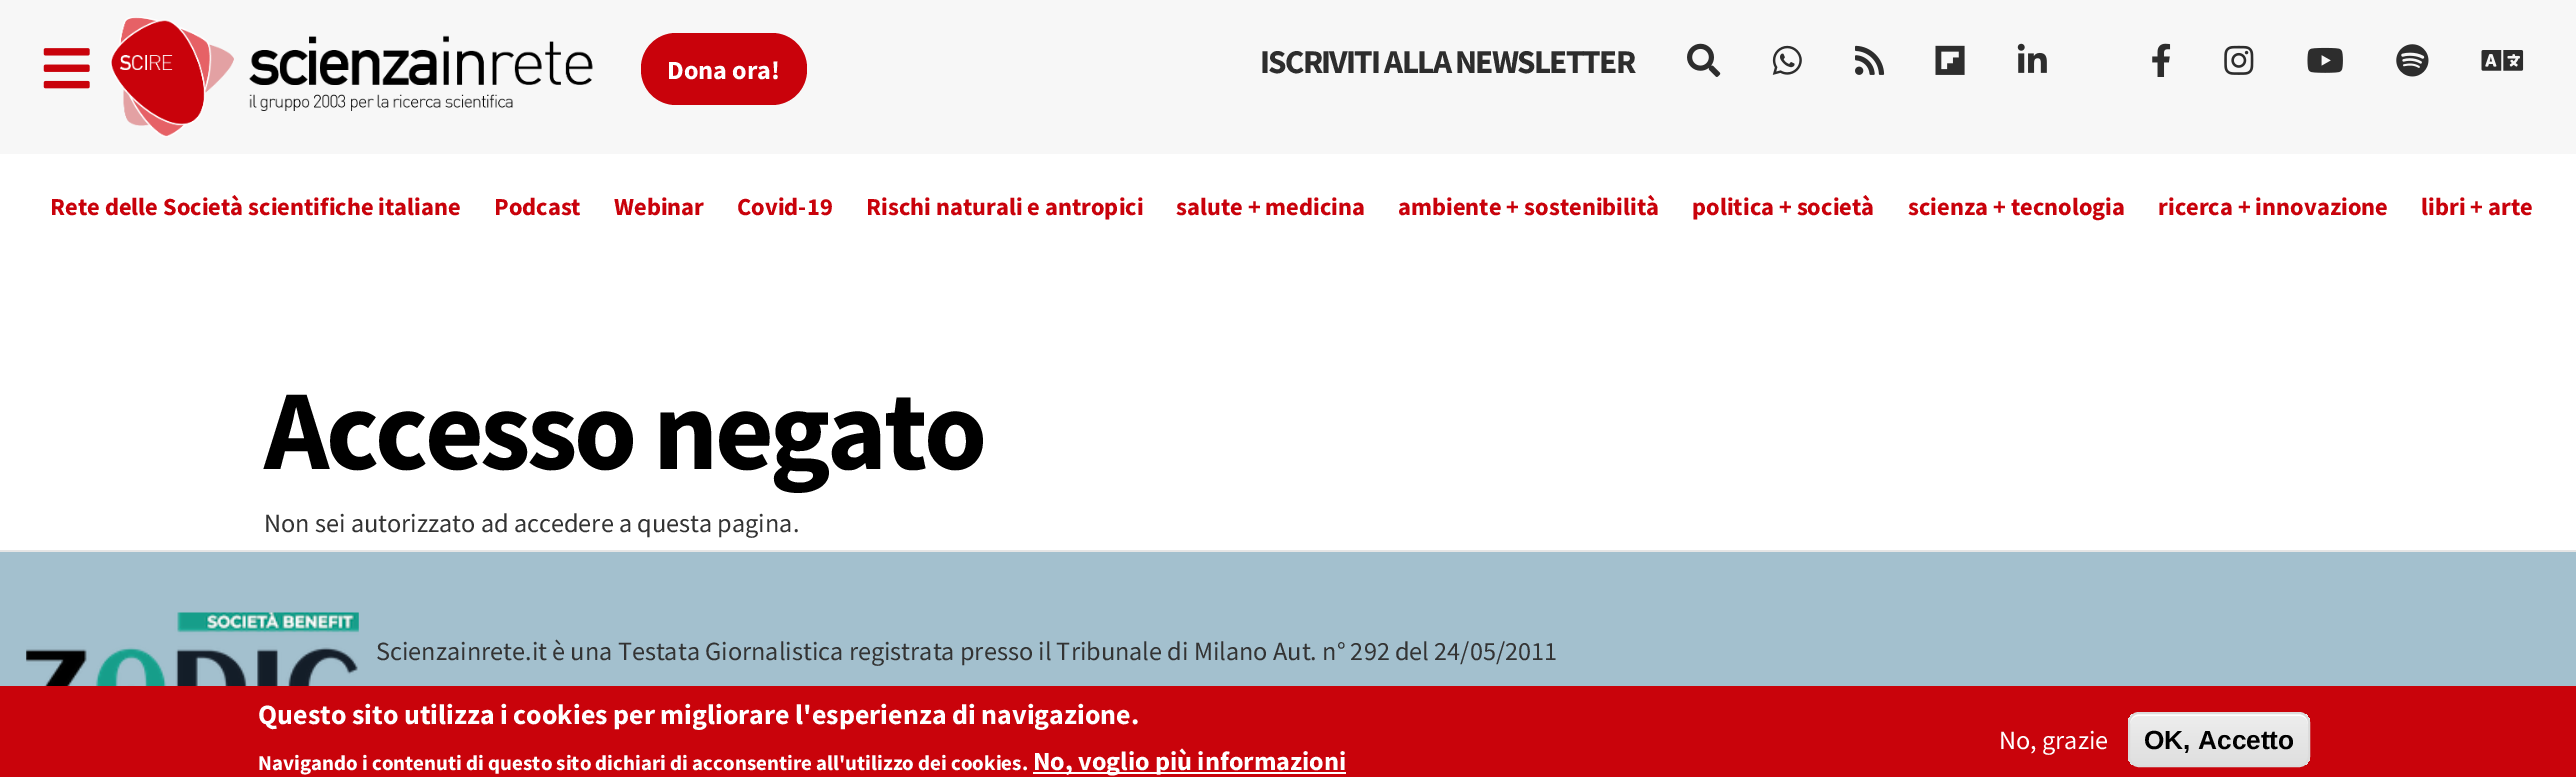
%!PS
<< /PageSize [2576 777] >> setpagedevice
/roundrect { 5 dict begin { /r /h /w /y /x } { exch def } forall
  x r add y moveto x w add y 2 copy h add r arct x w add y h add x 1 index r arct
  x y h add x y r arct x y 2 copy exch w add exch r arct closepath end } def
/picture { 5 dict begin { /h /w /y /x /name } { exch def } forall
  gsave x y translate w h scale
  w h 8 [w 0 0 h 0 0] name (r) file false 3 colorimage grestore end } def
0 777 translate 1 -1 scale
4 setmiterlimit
1 setgray
0 0 2576 777 rectfill
0.969 setgray
0 0 2576 154 rectfill
(img1.rgb) 43 48 47 41 picture
(img2.rgb) 110 17 483 120 picture
0.788 0.008 0.043 setrgbcolor
641 33 166 72 35 roundrect fill
/SourceSansPro-Bold [26.25 0 0 -26.25 0 0] selectfont
1 setgray
667 79 moveto (Dona ora!) show
/SourceSansPro-Bold [33.25 0 0 -33.25 0 0] selectfont
0.176 setgray
1260 73 moveto -1.75 0 (ISCRIVITI ALLA NEWSLETTER) ashow
(img3.rgb) 1687 43 34 34 picture
(img4.rgb) 1772 45 30 30 picture
(img5.rgb) 1855 45 30 30 picture
(img6.rgb) 1935 45 30 30 picture
(img7.rgb) 2017 43 30 30 picture
(img8.rgb) 2152 43 19 34 picture
(img9.rgb) 2224 45 30 30 picture
(img10.rgb) 2307 47 36 26 picture
(img11.rgb) 2396 44 33 33 picture
(img12.rgb) 2481 50 43 21 picture
/SourceSansPro-Bold [24.5 0 0 -24.5 0 0] selectfont
0.788 0.008 0.043 setrgbcolor
50 215 moveto (Rete delle Società scientifiche italiane) show
494 215 moveto (Podcast) show
614 215 moveto (Webinar) show
737 215 moveto (Covid-19) show
866 215 moveto (Rischi naturali e antropici) show
1176 215 moveto (salute + medicina) show
1398 215 moveto (ambiente + sostenibilità) show
1692 215 moveto (politica + società) show
1908 215 moveto (scienza + tecnologia) show
2158 215 moveto (ricerca + innovazione) show
2421 215 moveto (libri + arte) show
/SourceSansPro-Bold [113.75 0 0 -113.75 0 0] selectfont
0 setgray
264 469 moveto -3.5 0 (Accesso negato) ashow
/SourceSansPro-Regular [26.25 0 0 -26.25 0 0] selectfont
0.2 setgray
264 532 moveto (Non sei autorizzato ad accedere a questa pagina.) show
0.639 0.753 0.808 setrgbcolor
0 552 2576 134 rectfill
0.898 setgray
0 550 2576 2 rectfill
(img13.rgb) 26 612 333 74 picture
0.2 setgray
376 660 moveto (Scienzainrete.it è una Testata Giornalistica registrata presso il Tribunale di Milano Aut. n° 292 del 24/05/2011) show
0.788 0.012 0.043 setrgbcolor
0 686 2576 91 rectfill
/SourceSansPro-Bold [28 0 0 -28 0 0] selectfont
1 setgray
258 724 moveto (Questo sito utilizza i cookies per migliorare l'esperienza di navigazione.) show
/SourceSansPro-Bold [21 0 0 -21 0 0] selectfont
258 770 moveto (Navigando i contenuti di questo sito dichiari di acconsentire all'utilizzo dei cookies.) show
1033 772 313 2 rectfill
/SourceSansPro-Bold [26.25 0 0 -26.25 0 0] selectfont
1033 770 moveto (No, voglio più informazioni) show
/SourceSansPro-Regular [26.25 0 0 -26.25 0 0] selectfont
1999 749 moveto (No, grazie) show
gsave
2128 712 182 55 11 roundrect clip newpath
gsave newpath 2128 714 moveto 2310 714 lineto 2310 765 lineto 2128 765 lineto closepath clip newpath
<< /ShadingType 2 /ColorSpace /DeviceRGB /Coords [2219 714 2219 765] /Extend [true true] /Function << /FunctionType 3 /Domain [0 1] /Functions [<< /FunctionType 2 /Domain [0 1] /C0 [0.929 0.929 0.929] /C1 [0.929 0.929 0.929] /N 1 >> << /FunctionType 2 /Domain [0 1] /C0 [0.929 0.929 0.929] /C1 [0.875 0.875 0.875] /N 1 >>] /Bounds [0.05] /Encode [0 1 0 1] >> >> shfill grestore
grestore
newpath 2138 716 moveto 2300 716 lineto 2304 716 2308 720 2308 724 curveto 2308 723 lineto 2308 718 2304 714 2299 714 curveto 2139 714 lineto 2134 714 2130 718 2130 723 curveto 2130 724 lineto 2130 720 2134 716 2138 716 curveto closepath fill
0.863 setgray
2 setlinewidth
2129 713 180 53 10 roundrect stroke
/LiberationSans-Bold [26.25 0 0 -26.25 0 0] selectfont
0 setgray
2144 749 moveto (OK, Accetto) show
showpage
